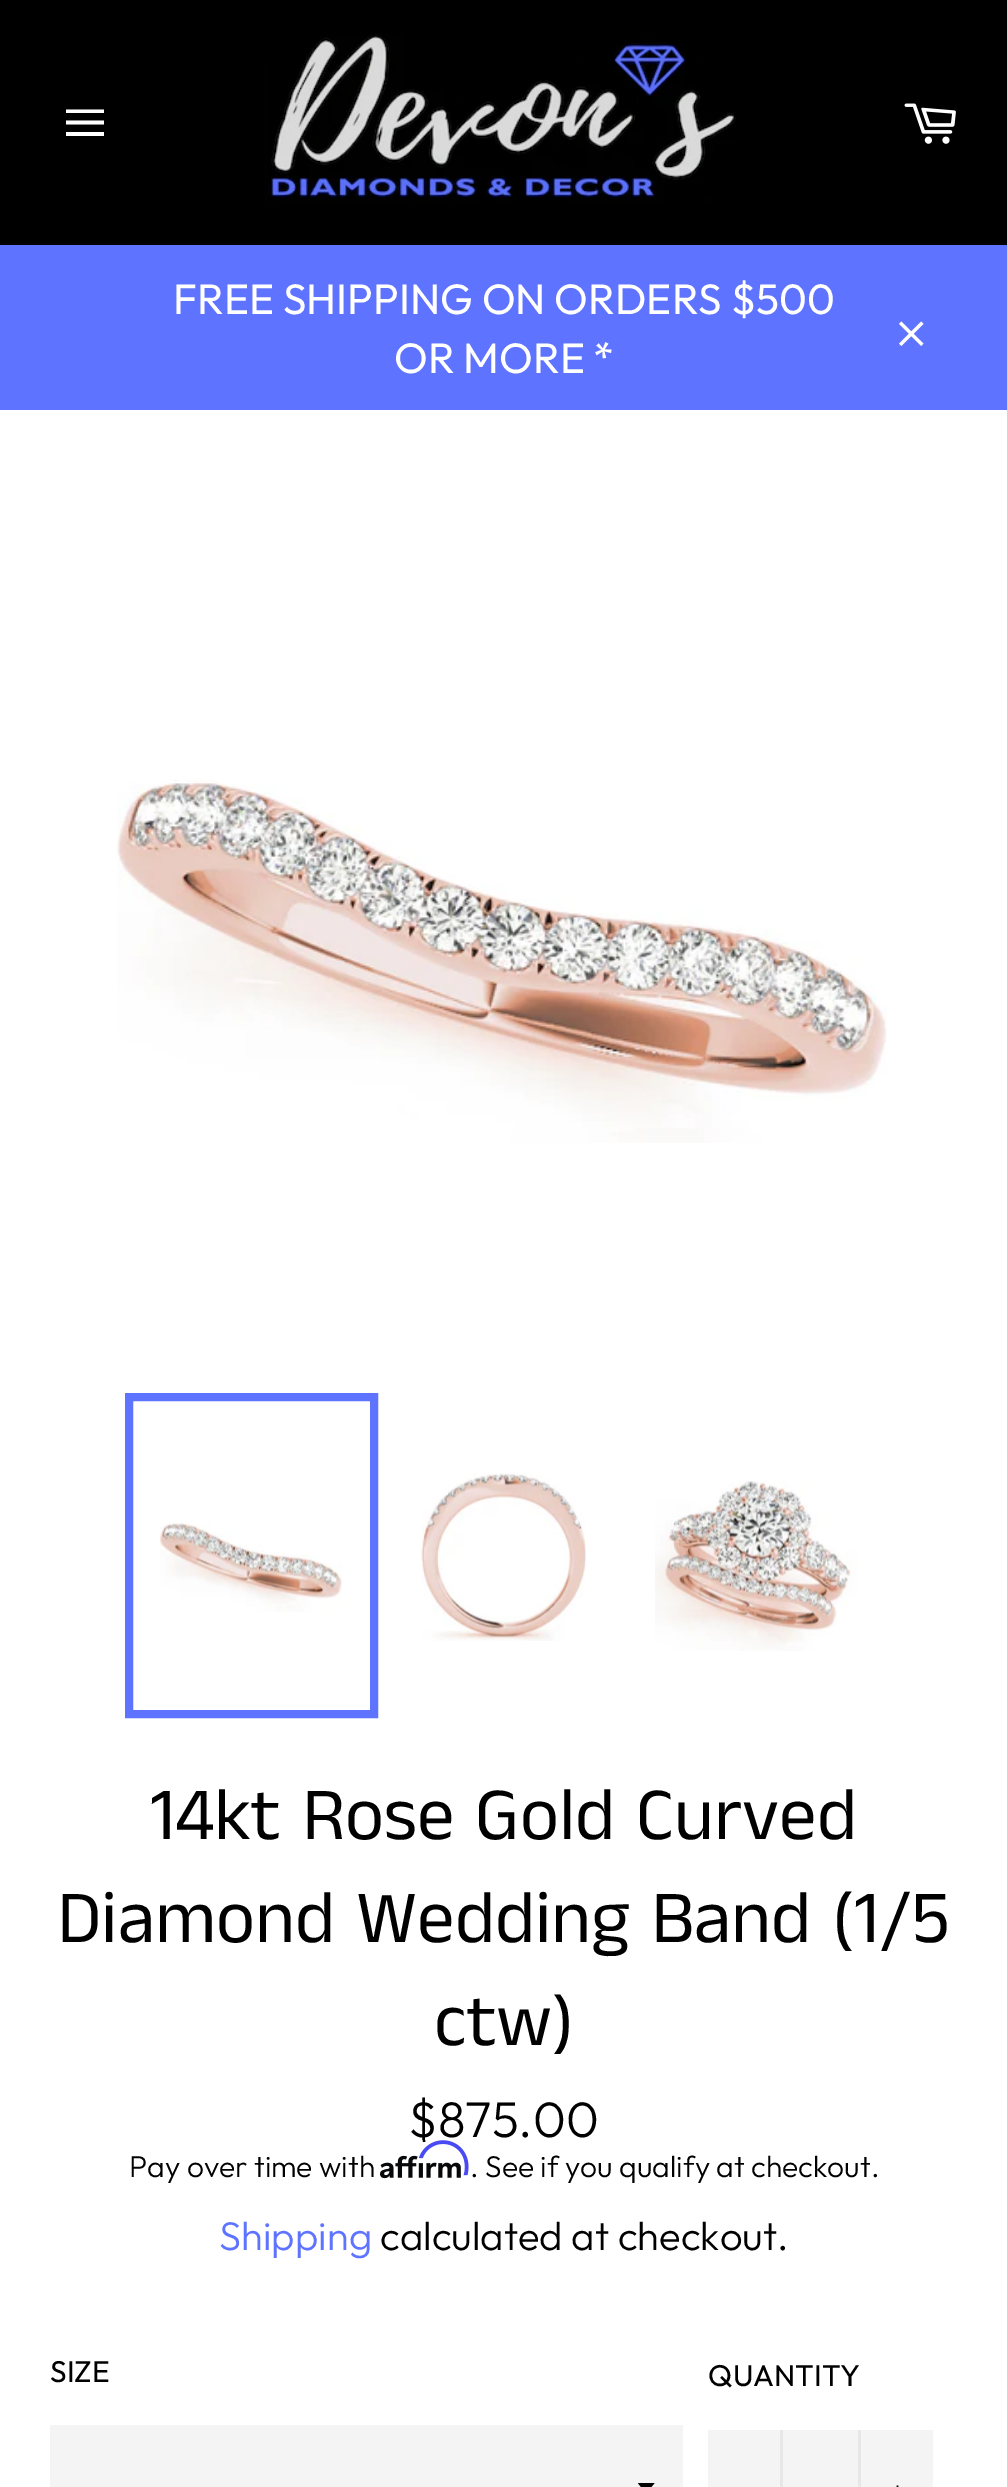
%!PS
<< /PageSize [1007 2487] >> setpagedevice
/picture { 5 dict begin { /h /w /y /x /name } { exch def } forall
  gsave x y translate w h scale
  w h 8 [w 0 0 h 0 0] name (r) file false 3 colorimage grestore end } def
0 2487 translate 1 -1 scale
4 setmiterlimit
1 setgray
0 0 1007 2487 rectfill
0 setgray
0 0 1007 245 rectfill
1 setgray
newpath 66 120.5 moveto 104 120.5 lineto 104 124.5 lineto 66 124.5 lineto closepath 66 109.5 moveto 104 109.5 lineto 104 113 lineto 66 113 lineto closepath 66 132 moveto 104 132 lineto 104 136 lineto 66 136 lineto closepath fill
(img1.rgb) 265 34 471 169 picture
(img2.rgb) 904 103 52 41 picture
0.369 0.451 1 setrgbcolor
0 245 1007 165 rectfill
/Outfit-Regular [42.5 0 0 -42.5 0 0] selectfont
1 setgray
173 314 moveto (FREE SHIPPING ON ORDERS $500) show
394 373 moveto (OR MORE *) show
(img3.rgb) 899 321 25 25 picture
(img4.rgb) 117 779 770 364 picture
(img5.rgb) 160 1522 182 90 picture
0.369 0.451 1 setrgbcolor
8 setlinewidth
129 1397 245 317 rectstroke
(img6.rgb) 421 1473 165 168 picture
(img7.rgb) 655 1481 203 170 picture
/AnekTamil-Regular [75 0 0 -75 0 0] selectfont
0 setgray
150 1839 moveto (14kt Rose Gold Curved) show
57 1942 moveto (Diamond Wedding Band \(1/5) show
434 2045 moveto (ctw\)) show
/Outfit-Light [50 0 0 -50 0 0] selectfont
408 2137 moveto ($875.00) show
/Outfit-Light [30 0 0 -30 0 0] selectfont
129 2177 moveto (Pay over time with) show
(img9.rgb) 380 2155 81 24 picture
(img8.rgb) 418 2140 51 36 picture
470 2177 moveto (. See if you qualify at checkout.) show
/Outfit-Light [40 0 0 -40 0 0] selectfont
0.369 0.451 1 setrgbcolor
219 2250 moveto (Shipping) show
0 setgray
380 2250 moveto (calculated at checkout.) show
/Outfit-Regular [30 0 0 -30 0 0] selectfont
50 2382 moveto (SIZE) show
0.957 setgray
50 2425 633 62 rectfill
gsave
638 2483 20 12 rectclip
0 setgray
newpath 637.5 2482.5 moveto 646 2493.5 lineto 655 2482.5 lineto closepath fill
grestore
0 setgray
708 2386 moveto (QUANTITY) show
0.957 setgray
708 2430 225 57 rectfill
0.906 setgray
780 2430 3 57 rectfill
858 2430 3 57 rectfill
(img10.rgb) 896 2485 3 2 picture
showpage
